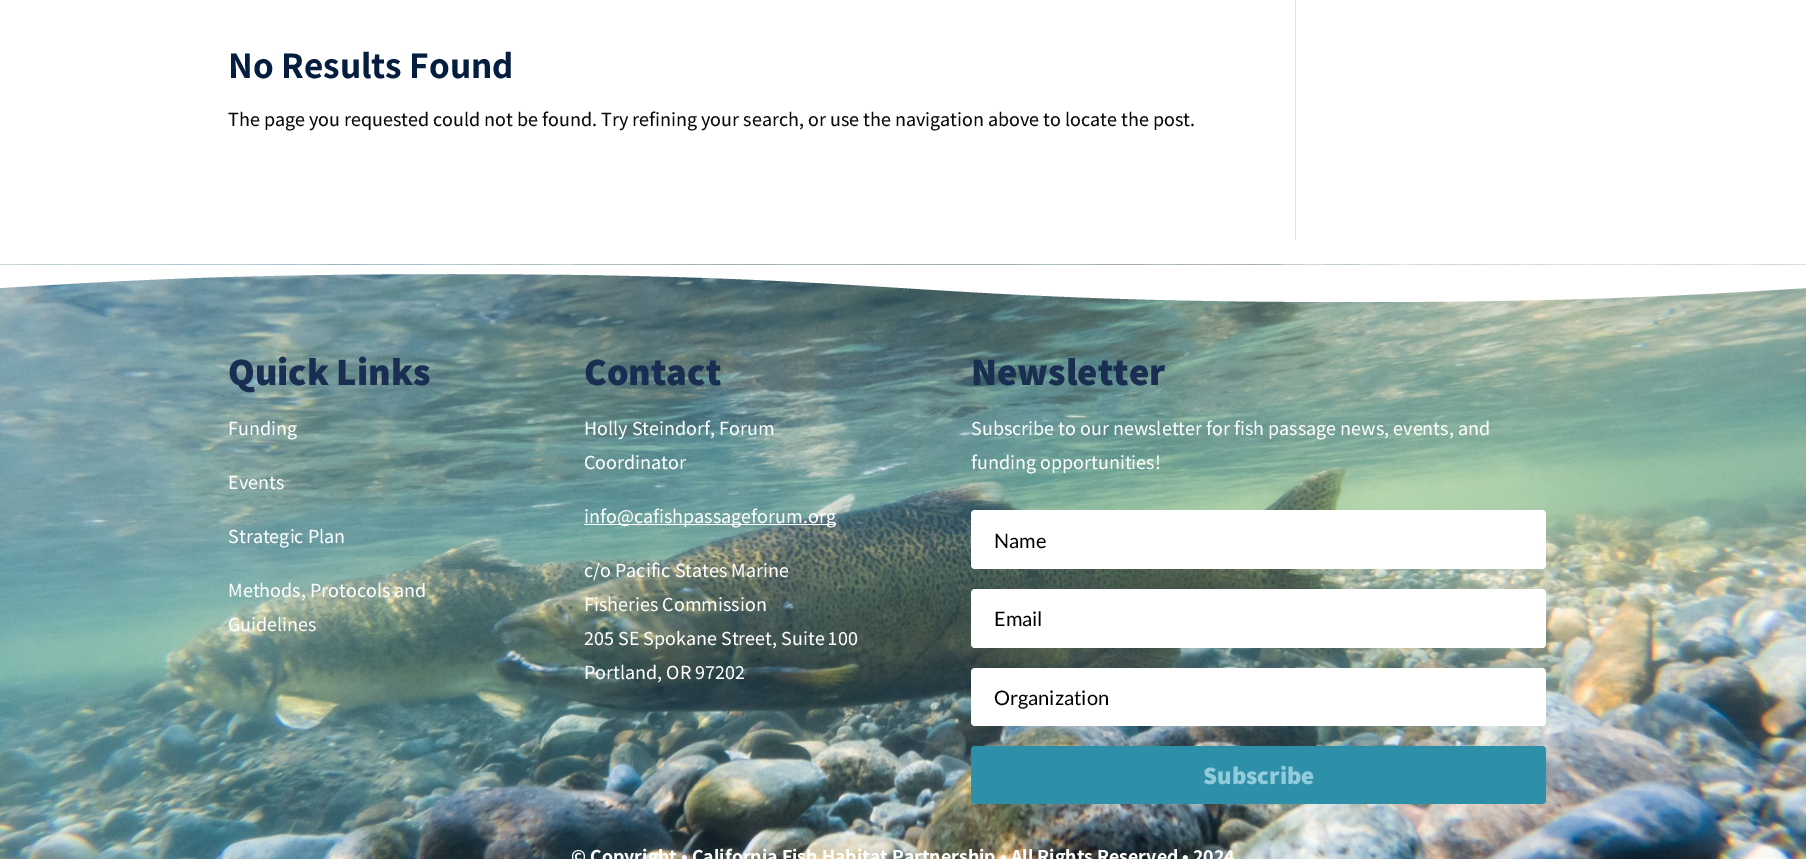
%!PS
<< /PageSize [1806 859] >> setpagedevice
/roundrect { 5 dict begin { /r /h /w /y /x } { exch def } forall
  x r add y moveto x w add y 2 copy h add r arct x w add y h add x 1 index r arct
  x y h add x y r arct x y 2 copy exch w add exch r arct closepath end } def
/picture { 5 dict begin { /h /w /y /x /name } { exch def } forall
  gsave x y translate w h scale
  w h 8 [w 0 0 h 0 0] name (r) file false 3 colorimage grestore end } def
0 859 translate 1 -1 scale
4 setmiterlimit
1 setgray
0 0 1806 859 rectfill
/Assistant-Bold [37.5 0 0 -37.5 0 0] selectfont
0.02 0.118 0.247 setrgbcolor
228 78 moveto (No Results Found) show
/Assistant-Medium [20 0 0 -20 0 0] selectfont
0.039 setgray
228 126 moveto (The page you requested could not be found. Try refining your search, or use the navigation above to locate the post.) show
0.886 setgray
1295 0 1 240 rectfill
(img1.rgb) 0 264 1806 595 picture
1 setgray
newpath 452 274 moveto 226 274 113 281 0 288 curveto 0 265 lineto 1806 265 lineto 1806 288 lineto 1693 295 1580 302 1355 302 curveto 903 302 903 274 452 274 curveto closepath fill
/Assistant-ExtraBold [38.75 0 0 -38.75 0 0] selectfont
0.102 0.18 0.322 setrgbcolor
228 385 moveto (Quick Links) show
/Assistant-Medium [20 0 0 -20 0 0] selectfont
1 setgray
228 435 moveto (Funding) show
228 489 moveto (Events) show
228 543 moveto (Strategic Plan) show
228 597 moveto (Methods, Protocols and) show
gsave
229 344 281 297 19 roundrect clip newpath
228 631 moveto (Guidelines) show
grestore
/Assistant-ExtraBold [38.75 0 0 -38.75 0 0] selectfont
0.102 0.18 0.322 setrgbcolor
584 385 moveto (Contact) show
/Assistant-Medium [20 0 0 -20 0 0] selectfont
1 setgray
584 435 moveto (Holly Steindorf, Forum) show
584 469 moveto (Coordinator) show
584 524 252 1 rectfill
584 523 moveto (info@cafishpassageforum.org) show
584 577 moveto (c/o Pacific States Marine) show
584 611 moveto (Fisheries Commission) show
584 645 moveto (205 SE Spokane Street, Suite 100) show
584 679 moveto (Portland, OR 97202) show
/Assistant-ExtraBold [38.75 0 0 -38.75 0 0] selectfont
0.102 0.18 0.322 setrgbcolor
971 385 moveto (Newsletter) show
/Assistant-Medium [20 0 0 -20 0 0] selectfont
1 setgray
971 435 moveto (Subscribe to our newsletter for fish passage news, events, and) show
971 469 moveto (funding opportunities!) show
971 510 575 59 4 roundrect fill
/Lato-Regular [20 0 0 -20 0 0] selectfont
0 setgray
994 548 moveto (Name) show
1 setgray
971 589 575 59 4 roundrect fill
0 setgray
994 626 moveto (Email) show
1 setgray
971 668 575 58 4 roundrect fill
0 setgray
994 705 moveto (Organization) show
0.18 0.561 0.659 setrgbcolor
971 746 575 58 4 roundrect fill
/Assistant-ExtraBold [25 0 0 -25 0 0] selectfont
0.573 0.796 0.859 setrgbcolor
1203 784 moveto (Subscribe) show
/Assistant-Bold [20 0 0 -20 0 0] selectfont
1 setgray
571 863 moveto (© Copyright • California Fish Habitat Partnership • All Rights Reserved • 2024) show
showpage
